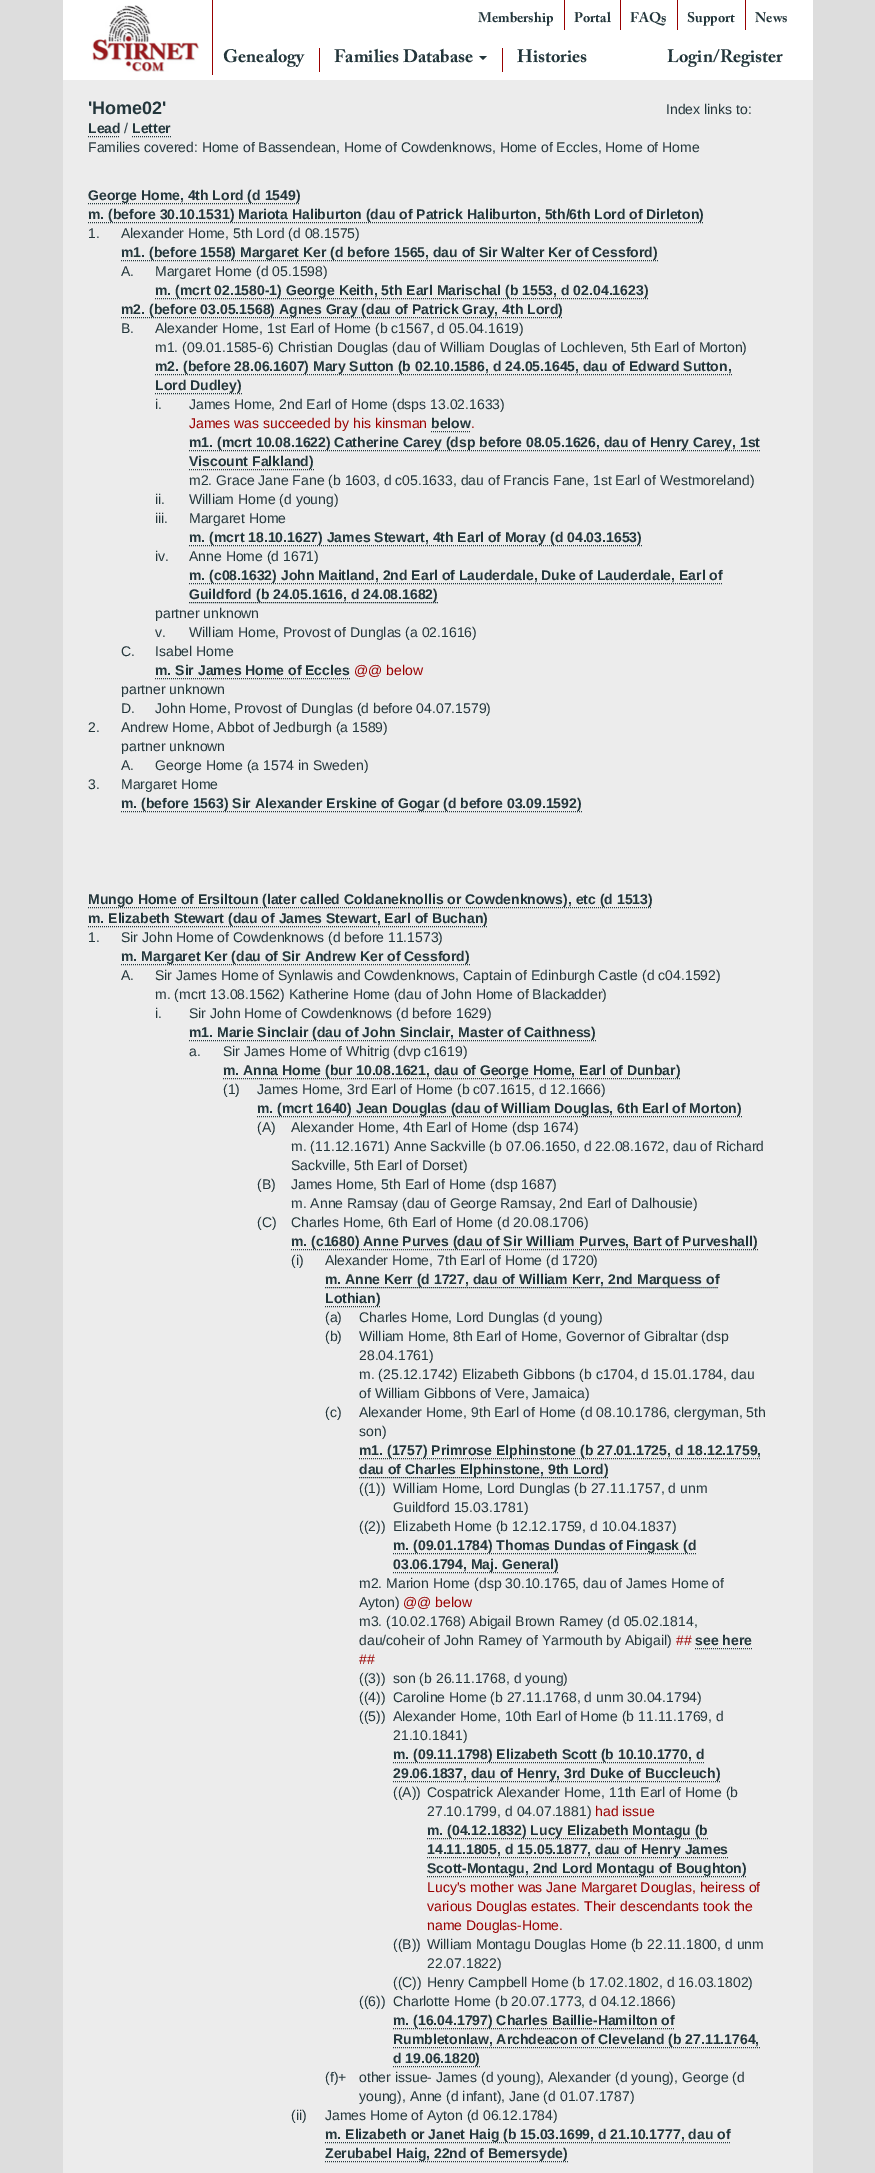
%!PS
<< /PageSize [875 2173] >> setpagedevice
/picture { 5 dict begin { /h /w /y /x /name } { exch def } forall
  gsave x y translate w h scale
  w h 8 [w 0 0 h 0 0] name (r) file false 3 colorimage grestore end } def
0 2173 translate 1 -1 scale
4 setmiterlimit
0.867 setgray
0 0 875 2173 rectfill
1 setgray
63 0 750 80 rectfill
/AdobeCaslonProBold-Bold [14 0 0 -14 0 0] selectfont
0.137 0.212 0.231 setrgbcolor
478 22 moveto (Membership) show
0.6 0 0 setrgbcolor
564 0 1 30 rectfill
0.137 0.212 0.231 setrgbcolor
574 22 moveto (Portal) show
0.6 0 0 setrgbcolor
620 0 1 30 rectfill
0.137 0.212 0.231 setrgbcolor
630 22 moveto (FAQs) show
0.6 0 0 setrgbcolor
677 0 1 30 rectfill
0.137 0.212 0.231 setrgbcolor
687 22 moveto (Support) show
0.6 0 0 setrgbcolor
745 0 1 30 rectfill
0.137 0.212 0.231 setrgbcolor
755 22 moveto (News) show
0.6 0 0 setrgbcolor
212 0 1 75 rectfill
(img1.rgb) 92 5 108 67 picture
/AdobeCaslonProBold-Bold [18 0 0 -18 0 0] selectfont
0.137 0.212 0.231 setrgbcolor
223 62 moveto (Genealogy) show
0.6 0 0 setrgbcolor
319 48 1 24 rectfill
0.137 0.212 0.231 setrgbcolor
334 62 moveto (Families Database) show
newpath 479 56 moveto 487 56 lineto 483 60 lineto closepath fill
0.6 0 0 setrgbcolor
502 48 1 24 rectfill
0.137 0.212 0.231 setrgbcolor
517 62 moveto (Histories) show
667 62 moveto (Login/Register) show
0.925 setgray
63 80 750 2093 rectfill
/LiberationSans-Bold [18 0 0 -18 0 0] selectfont
0.137 0.212 0.231 setrgbcolor
88 114 moveto ('Home02') show
/LiberationSans-Regular [14 0 0 -14 0 0] selectfont
666 114 moveto (Index links to:) show
/LiberationSans-Bold [14 0 0 -14 0 0] selectfont
88 133 moveto (Lead) show
[1 1] 0 setdash
newpath 88 136.5 moveto 120 136.5 lineto stroke
/LiberationSans-Regular [14 0 0 -14 0 0] selectfont
124 133 moveto (/) show
/LiberationSans-Bold [14 0 0 -14 0 0] selectfont
132 133 moveto (Letter) show
newpath 132 136.5 moveto 171 136.5 lineto stroke
/LiberationSans-Regular [14 0 0 -14 0 0] selectfont
88 152 moveto (Families covered: Home of Bassendean, Home of Cowdenknows, Home of Eccles, Home of Home) show
/LiberationSans-Bold [14 0 0 -14 0 0] selectfont
88 200 moveto (George Home, 4th Lord \(d 1549\)) show
newpath 88 203.5 moveto 300 203.5 lineto stroke
88 219 moveto (m. \(before 30.10.1531\) Mariota Haliburton \(dau of Patrick Haliburton, 5th/6th Lord of Dirleton\)) show
newpath 88 222.5 moveto 704 222.5 lineto stroke
/LiberationSans-Regular [14 0 0 -14 0 0] selectfont
88 238 moveto (1.) show
121 238 moveto (Alexander Home, 5th Lord \(d 08.1575\)) show
/LiberationSans-Bold [14 0 0 -14 0 0] selectfont
121 257 moveto (m1. \(before 1558\) Margaret Ker \(d before 1565, dau of Sir Walter Ker of Cessford\)) show
newpath 121 260.5 moveto 658 260.5 lineto stroke
/LiberationSans-Regular [14 0 0 -14 0 0] selectfont
121 276 moveto (A.) show
155 276 moveto (Margaret Home \(d 05.1598\)) show
/LiberationSans-Bold [14 0 0 -14 0 0] selectfont
155 295 moveto (m. \(mcrt 02.1580-1\) George Keith, 5th Earl Marischal \(b 1553, d 02.04.1623\)) show
newpath 155 298.5 moveto 649 298.5 lineto stroke
121 314 moveto (m2. \(before 03.05.1568\) Agnes Gray \(dau of Patrick Gray, 4th Lord\)) show
newpath 121 317.5 moveto 563 317.5 lineto stroke
/LiberationSans-Regular [14 0 0 -14 0 0] selectfont
121 333 moveto (B.) show
155 333 moveto (Alexander Home, 1st Earl of Home \(b c1567, d 05.04.1619\)) show
155 352 moveto (m1. \(09.01.1585-6\) Christian Douglas \(dau of William Douglas of Lochleven, 5th Earl of Morton\)) show
/LiberationSans-Bold [14 0 0 -14 0 0] selectfont
155 371 moveto (m2. \(before 28.06.1607\) Mary Sutton \(b 02.10.1586, d 24.05.1645, dau of Edward Sutton,) show
newpath 155 374.5 moveto 732 374.5 lineto stroke
155 390 moveto (Lord Dudley\)) show
newpath 155 393.5 moveto 242 393.5 lineto stroke
/LiberationSans-Regular [14 0 0 -14 0 0] selectfont
155 409 moveto (i.) show
189 409 moveto (James Home, 2nd Earl of Home \(dsps 13.02.1633\)) show
0.6 0 0 setrgbcolor
189 428 moveto (James was succeeded by his kinsman) show
/LiberationSans-Bold [14 0 0 -14 0 0] selectfont
0.137 0.212 0.231 setrgbcolor
431 428 moveto (below) show
/LiberationSans-Regular [14 0 0 -14 0 0] selectfont
0.6 0 0 setrgbcolor
471 428 moveto (.) show
0.137 0.212 0.231 setrgbcolor
newpath 431 431.5 moveto 471 431.5 lineto stroke
/LiberationSans-Bold [14 0 0 -14 0 0] selectfont
189 447 moveto (m1. \(mcrt 10.08.1622\) Catherine Carey \(dsp before 08.05.1626, dau of Henry Carey, 1st) show
newpath 189 450.5 moveto 760 450.5 lineto stroke
189 466 moveto (Viscount Falkland\)) show
newpath 189 469.5 moveto 314 469.5 lineto stroke
/LiberationSans-Regular [14 0 0 -14 0 0] selectfont
189 485 moveto (m2. Grace Jane Fane \(b 1603, d c05.1633, dau of Francis Fane, 1st Earl of Westmoreland\)) show
155 504 moveto (ii.) show
189 504 moveto (William Home \(d young\)) show
155 523 moveto (iii.) show
189 523 moveto (Margaret Home) show
/LiberationSans-Bold [14 0 0 -14 0 0] selectfont
189 542 moveto (m. \(mcrt 18.10.1627\) James Stewart, 4th Earl of Moray \(d 04.03.1653\)) show
newpath 189 545.5 moveto 642 545.5 lineto stroke
/LiberationSans-Regular [14 0 0 -14 0 0] selectfont
155 561 moveto (iv.) show
189 561 moveto (Anne Home \(d 1671\)) show
/LiberationSans-Bold [14 0 0 -14 0 0] selectfont
189 580 moveto (m. \(c08.1632\) John Maitland, 2nd Earl of Lauderdale, Duke of Lauderdale, Earl of) show
newpath 189 583.5 moveto 723 583.5 lineto stroke
189 599 moveto (Guildford \(b 24.05.1616, d 24.08.1682\)) show
newpath 189 602.5 moveto 438 602.5 lineto stroke
/LiberationSans-Regular [14 0 0 -14 0 0] selectfont
155 618 moveto (partner unknown) show
155 637 moveto (v.) show
189 637 moveto (William Home, Provost of Dunglas \(a 02.1616\)) show
121 656 moveto (C.) show
155 656 moveto (Isabel Home) show
/LiberationSans-Bold [14 0 0 -14 0 0] selectfont
155 675 moveto (m. Sir James Home of Eccles) show
newpath 155 678.5 moveto 350 678.5 lineto stroke
/LiberationSans-Regular [14 0 0 -14 0 0] selectfont
0.6 0 0 setrgbcolor
354 675 moveto (@@ below) show
0.137 0.212 0.231 setrgbcolor
121 694 moveto (partner unknown) show
121 713 moveto (D.) show
155 713 moveto (John Home, Provost of Dunglas \(d before 04.07.1579\)) show
88 732 moveto (2.) show
121 732 moveto (Andrew Home, Abbot of Jedburgh \(a 1589\)) show
121 751 moveto (partner unknown) show
121 770 moveto (A.) show
155 770 moveto (George Home \(a 1574 in Sweden\)) show
88 789 moveto (3.) show
121 789 moveto (Margaret Home) show
/LiberationSans-Bold [14 0 0 -14 0 0] selectfont
121 808 moveto (m. \(before 1563\) Sir Alexander Erskine of Gogar \(d before 03.09.1592\)) show
newpath 121 811.5 moveto 582 811.5 lineto stroke
88 904 moveto (Mungo Home of Ersiltoun \(later called Coldaneknollis or Cowdenknows\), etc \(d 1513\)) show
newpath 88 907.5 moveto 652 907.5 lineto stroke
88 923 moveto (m. Elizabeth Stewart \(dau of James Stewart, Earl of Buchan\)) show
newpath 88 926.5 moveto 487 926.5 lineto stroke
/LiberationSans-Regular [14 0 0 -14 0 0] selectfont
88 942 moveto (1.) show
121 942 moveto (Sir John Home of Cowdenknows \(d before 11.1573\)) show
/LiberationSans-Bold [14 0 0 -14 0 0] selectfont
121 961 moveto (m. Margaret Ker \(dau of Sir Andrew Ker of Cessford\)) show
newpath 121 964.5 moveto 470 964.5 lineto stroke
/LiberationSans-Regular [14 0 0 -14 0 0] selectfont
121 980 moveto (A.) show
155 980 moveto (Sir James Home of Synlawis and Cowdenknows, Captain of Edinburgh Castle \(d c04.1592\)) show
155 999 moveto (m. \(mcrt 13.08.1562\) Katherine Home \(dau of John Home of Blackadder\)) show
155 1018 moveto (i.) show
189 1018 moveto (Sir John Home of Cowdenknows \(d before 1629\)) show
/LiberationSans-Bold [14 0 0 -14 0 0] selectfont
189 1037 moveto (m1. Marie Sinclair \(dau of John Sinclair, Master of Caithness\)) show
newpath 189 1040.5 moveto 596 1040.5 lineto stroke
/LiberationSans-Regular [14 0 0 -14 0 0] selectfont
189 1056 moveto (a.) show
223 1056 moveto (Sir James Home of Whitrig \(dvp c1619\)) show
/LiberationSans-Bold [14 0 0 -14 0 0] selectfont
223 1075 moveto (m. Anna Home \(bur 10.08.1621, dau of George Home, Earl of Dunbar\)) show
newpath 223 1078.5 moveto 681 1078.5 lineto stroke
/LiberationSans-Regular [14 0 0 -14 0 0] selectfont
223 1094 moveto (\(1\)) show
257 1094 moveto (James Home, 3rd Earl of Home \(b c07.1615, d 12.1666\)) show
/LiberationSans-Bold [14 0 0 -14 0 0] selectfont
257 1113 moveto (m. \(mcrt 1640\) Jean Douglas \(dau of William Douglas, 6th Earl of Morton\)) show
newpath 257 1116.5 moveto 742 1116.5 lineto stroke
/LiberationSans-Regular [14 0 0 -14 0 0] selectfont
257 1132 moveto (\(A\)) show
291 1132 moveto (Alexander Home, 4th Earl of Home \(dsp 1674\)) show
291 1151 moveto (m. \(11.12.1671\) Anne Sackville \(b 07.06.1650, d 22.08.1672, dau of Richard) show
291 1170 moveto (Sackville, 5th Earl of Dorset\)) show
257 1189 moveto (\(B\)) show
291 1189 moveto (James Home, 5th Earl of Home \(dsp 1687\)) show
291 1208 moveto (m. Anne Ramsay \(dau of George Ramsay, 2nd Earl of Dalhousie\)) show
257 1227 moveto (\(C\)) show
291 1227 moveto (Charles Home, 6th Earl of Home \(d 20.08.1706\)) show
/LiberationSans-Bold [14 0 0 -14 0 0] selectfont
291 1246 moveto (m. \(c1680\) Anne Purves \(dau of Sir William Purves, Bart of Purveshall\)) show
newpath 291 1249.5 moveto 758 1249.5 lineto stroke
/LiberationSans-Regular [14 0 0 -14 0 0] selectfont
291 1265 moveto (\(i\)) show
325 1265 moveto (Alexander Home, 7th Earl of Home \(d 1720\)) show
/LiberationSans-Bold [14 0 0 -14 0 0] selectfont
325 1284 moveto (m. Anne Kerr \(d 1727, dau of William Kerr, 2nd Marquess of) show
newpath 325 1287.5 moveto 719 1287.5 lineto stroke
325 1303 moveto (Lothian\)) show
newpath 325 1306.5 moveto 380 1306.5 lineto stroke
/LiberationSans-Regular [14 0 0 -14 0 0] selectfont
325 1322 moveto (\(a\)) show
359 1322 moveto (Charles Home, Lord Dunglas \(d young\)) show
325 1341 moveto (\(b\)) show
359 1341 moveto (William Home, 8th Earl of Home, Governor of Gibraltar \(dsp) show
359 1360 moveto (28.04.1761\)) show
359 1379 moveto (m. \(25.12.1742\) Elizabeth Gibbons \(b c1704, d 15.01.1784, dau) show
359 1398 moveto (of William Gibbons of Vere, Jamaica\)) show
325 1417 moveto (\(c\)) show
359 1417 moveto (Alexander Home, 9th Earl of Home \(d 08.10.1786, clergyman, 5th) show
359 1436 moveto (son\)) show
/LiberationSans-Bold [14 0 0 -14 0 0] selectfont
359 1455 moveto (m1. \(1757\) Primrose Elphinstone \(b 27.01.1725, d 18.12.1759,) show
newpath 359 1458.5 moveto 761 1458.5 lineto stroke
359 1474 moveto (dau of Charles Elphinstone, 9th Lord\)) show
newpath 359 1477.5 moveto 608 1477.5 lineto stroke
/LiberationSans-Regular [14 0 0 -14 0 0] selectfont
359 1493 moveto (\(\(1\)\)) show
393 1493 moveto (William Home, Lord Dunglas \(b 27.11.1757, d unm) show
393 1512 moveto (Guildford 15.03.1781\)) show
359 1531 moveto (\(\(2\)\)) show
393 1531 moveto (Elizabeth Home \(b 12.12.1759, d 10.04.1837\)) show
/LiberationSans-Bold [14 0 0 -14 0 0] selectfont
393 1550 moveto (m. \(09.01.1784\) Thomas Dundas of Fingask \(d) show
newpath 393 1553.5 moveto 697 1553.5 lineto stroke
393 1569 moveto (03.06.1794, Maj. General\)) show
newpath 393 1572.5 moveto 559 1572.5 lineto stroke
/LiberationSans-Regular [14 0 0 -14 0 0] selectfont
359 1588 moveto (m2. Marion Home \(dsp 30.10.1765, dau of James Home of) show
359 1607 moveto (Ayton\)) show
0.6 0 0 setrgbcolor
403 1607 moveto (@@ below) show
0.137 0.212 0.231 setrgbcolor
359 1626 moveto (m3. \(10.02.1768\) Abigail Brown Ramey \(d 05.02.1814,) show
359 1645 moveto (dau/coheir of John Ramey of Yarmouth by Abigail\)) show
0.6 0 0 setrgbcolor
676 1645 moveto (##) show
/LiberationSans-Bold [14 0 0 -14 0 0] selectfont
0.137 0.212 0.231 setrgbcolor
695 1645 moveto (see here) show
newpath 695 1648.5 moveto 752 1648.5 lineto stroke
/LiberationSans-Regular [14 0 0 -14 0 0] selectfont
0.6 0 0 setrgbcolor
359 1664 moveto (##) show
0.137 0.212 0.231 setrgbcolor
359 1683 moveto (\(\(3\)\)) show
393 1683 moveto (son \(b 26.11.1768, d young\)) show
359 1702 moveto (\(\(4\)\)) show
393 1702 moveto (Caroline Home \(b 27.11.1768, d unm 30.04.1794\)) show
359 1721 moveto (\(\(5\)\)) show
393 1721 moveto (Alexander Home, 10th Earl of Home \(b 11.11.1769, d) show
393 1740 moveto (21.10.1841\)) show
/LiberationSans-Bold [14 0 0 -14 0 0] selectfont
393 1759 moveto (m. \(09.11.1798\) Elizabeth Scott \(b 10.10.1770, d) show
newpath 393 1762.5 moveto 705 1762.5 lineto stroke
393 1778 moveto (29.06.1837, dau of Henry, 3rd Duke of Buccleuch\)) show
newpath 393 1781.5 moveto 721 1781.5 lineto stroke
/LiberationSans-Regular [14 0 0 -14 0 0] selectfont
393 1797 moveto (\(\(A\)\)) show
427 1797 moveto (Cospatrick Alexander Home, 11th Earl of Home \(b) show
427 1816 moveto (27.10.1799, d 04.07.1881\)) show
0.6 0 0 setrgbcolor
595 1816 moveto (had issue) show
/LiberationSans-Bold [14 0 0 -14 0 0] selectfont
0.137 0.212 0.231 setrgbcolor
427 1835 moveto (m. \(04.12.1832\) Lucy Elizabeth Montagu \(b) show
newpath 427 1838.5 moveto 708 1838.5 lineto stroke
427 1854 moveto (14.11.1805, d 15.05.1877, dau of Henry James) show
newpath 427 1857.5 moveto 729 1857.5 lineto stroke
427 1873 moveto (Scott-Montagu, 2nd Lord Montagu of Boughton\)) show
newpath 427 1876.5 moveto 747 1876.5 lineto stroke
/LiberationSans-Regular [14 0 0 -14 0 0] selectfont
0.6 0 0 setrgbcolor
427 1892 moveto (Lucy's mother was Jane Margaret Douglas, heiress of) show
427 1911 moveto (various Douglas estates. Their descendants took the) show
427 1930 moveto (name Douglas-Home.) show
0.137 0.212 0.231 setrgbcolor
393 1949 moveto (\(\(B\)\)) show
427 1949 moveto (William Montagu Douglas Home \(b 22.11.1800, d unm) show
427 1968 moveto (22.07.1822\)) show
393 1987 moveto (\(\(C\)\)) show
427 1987 moveto (Henry Campbell Home \(b 17.02.1802, d 16.03.1802\)) show
359 2006 moveto (\(\(6\)\)) show
393 2006 moveto (Charlotte Home \(b 20.07.1773, d 04.12.1866\)) show
/LiberationSans-Bold [14 0 0 -14 0 0] selectfont
393 2025 moveto (m. \(16.04.1797\) Charles Baillie-Hamilton of) show
newpath 393 2028.5 moveto 675 2028.5 lineto stroke
393 2044 moveto (Rumbletonlaw, Archdeacon of Cleveland \(b 27.11.1764,) show
newpath 393 2047.5 moveto 760 2047.5 lineto stroke
393 2063 moveto (d 19.06.1820\)) show
newpath 393 2066.5 moveto 481 2066.5 lineto stroke
/LiberationSans-Regular [14 0 0 -14 0 0] selectfont
325 2082 moveto (\(f\)+) show
359 2082 moveto (other issue- James \(d young\), Alexander \(d young\), George \(d) show
359 2101 moveto (young\), Anne \(d infant\), Jane \(d 01.07.1787\)) show
291 2120 moveto (\(ii\)) show
325 2120 moveto (James Home of Ayton \(d 06.12.1784\)) show
/LiberationSans-Bold [14 0 0 -14 0 0] selectfont
325 2139 moveto (m. Elizabeth or Janet Haig \(b 15.03.1699, d 21.10.1777, dau of) show
newpath 325 2142.5 moveto 730 2142.5 lineto stroke
325 2158 moveto (Zerubabel Haig, 22nd of Bemersyde\)) show
newpath 325 2161.5 moveto 568 2161.5 lineto stroke
showpage
